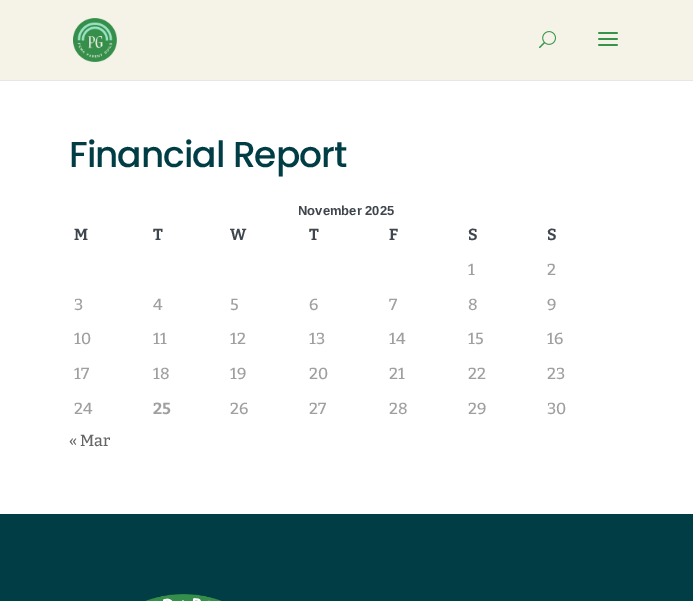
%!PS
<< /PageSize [693 601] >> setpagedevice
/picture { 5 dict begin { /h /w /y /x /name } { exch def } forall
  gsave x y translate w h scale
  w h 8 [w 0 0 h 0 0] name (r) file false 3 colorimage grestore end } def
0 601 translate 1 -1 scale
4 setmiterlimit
1 setgray
0 0 693 601 rectfill
0.902 setgray
0 80 693 1 rectfill
0.961 0.949 0.91 setrgbcolor
0 0 693 80 rectfill
(img1.rgb) 73 18 44 44 picture
(img2.rgb) 539 31 17 18 picture
(img3.rgb) 598 32 20 14 picture
/Poppins-Medium [36 0 0 -36 0 0] selectfont
0 0.239 0.271 setrgbcolor
69 167 moveto -1 0 (Financial Report) ashow
/LiberationSans-Bold [13 0 0 -13 0 0] selectfont
0.251 0.275 0.302 setrgbcolor
298 215 moveto (November 2025) show
/Bitter-Bold [16 0 0 -16 0 0] selectfont
74 240 moveto (M) show
153 240 moveto (T) show
230 240 moveto (W) show
309 240 moveto (T) show
389 240 moveto (F) show
468 240 moveto (S) show
547 240 moveto (S) show
/Bitter-Medium [16 0 0 -16 0 0] selectfont
0.624 setgray
468 275 moveto (1) show
547 275 moveto (2) show
74 310 moveto (3) show
153 310 moveto (4) show
230 310 moveto (5) show
309 310 moveto (6) show
389 310 moveto (7) show
468 310 moveto (8) show
547 310 moveto (9) show
74 344 moveto (10) show
153 344 moveto (11) show
230 344 moveto (12) show
309 344 moveto (13) show
389 344 moveto (14) show
468 344 moveto (15) show
547 344 moveto (16) show
74 379 moveto (17) show
153 379 moveto (18) show
230 379 moveto (19) show
309 379 moveto (20) show
389 379 moveto (21) show
468 379 moveto (22) show
547 379 moveto (23) show
74 414 moveto (24) show
/Bitter-Bold [16 0 0 -16 0 0] selectfont
153 414 moveto (25) show
/Bitter-Medium [16 0 0 -16 0 0] selectfont
230 414 moveto (26) show
309 414 moveto (27) show
389 414 moveto (28) show
468 414 moveto (29) show
547 414 moveto (30) show
0.4 setgray
69 446 moveto (« Mar) show
0 0.239 0.271 setrgbcolor
0 514 693 87 rectfill
(img4.rgb) 145 594 77 7 picture
showpage
